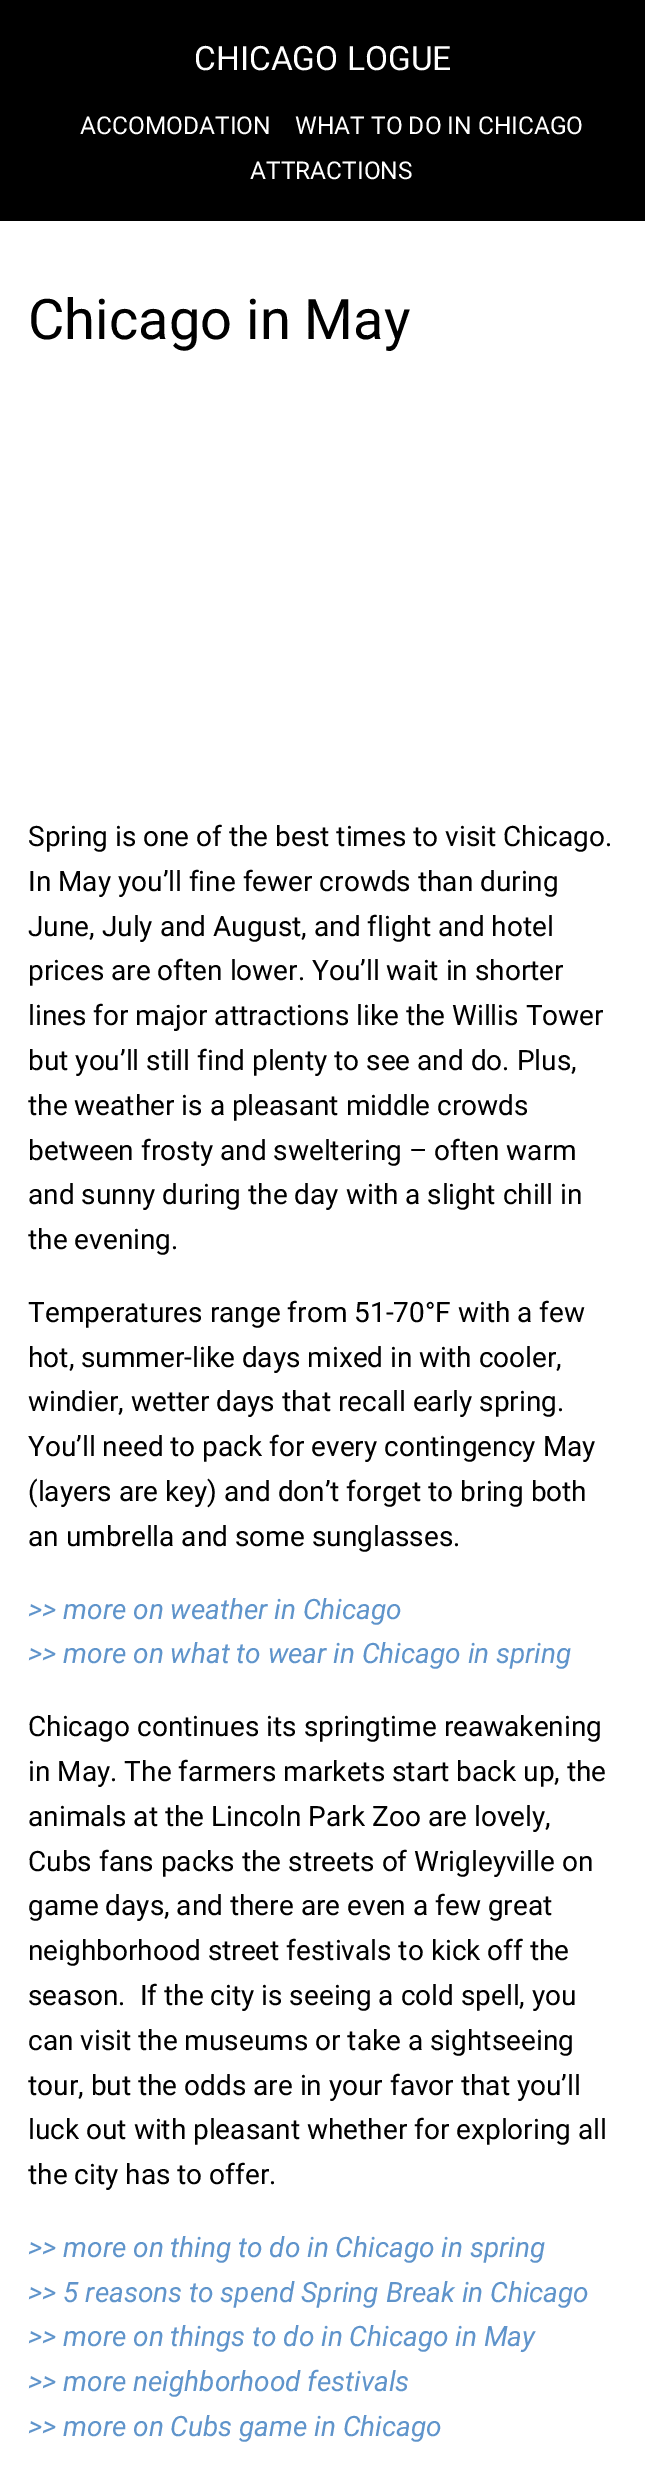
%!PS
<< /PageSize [645 2474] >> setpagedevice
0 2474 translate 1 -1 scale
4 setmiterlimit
1 setgray
0 0 645 2474 rectfill
0 setgray
0 0 645 221 rectfill
/Roboto-Regular [33.5 0 0 -33.5 0 0] selectfont
1 setgray
194 70 moveto (CHICAGO LOGUE) show
/Roboto-Regular [24.5 0 0 -24.5 0 0] selectfont
80 134 moveto (ACCOMODATION) show
295 134 moveto (WHAT TO DO IN CHICAGO) show
250 179 moveto (ATTRACTIONS) show
/Roboto-Regular [56 0 0 -56 0 0] selectfont
0 setgray
28 339 moveto (Chicago in May) show
/Roboto-Regular [28 0 0 -28 0 0] selectfont
28 846 moveto (Spring is one of the best times to visit Chicago.) show
28 891 moveto (In May you’ll fine fewer crowds than during) show
28 936 moveto (June, July and August, and flight and hotel) show
28 980 moveto (prices are often lower. You’ll wait in shorter) show
28 1025 moveto (lines for major attractions like the Willis Tower) show
28 1070 moveto (but you’ll still find plenty to see and do. Plus,) show
28 1115 moveto (the weather is a pleasant middle crowds) show
28 1160 moveto (between frosty and sweltering – often warm) show
28 1204 moveto (and sunny during the day with a slight chill in) show
28 1249 moveto (the evening.) show
28 1322 moveto (Temperatures range from 51-70°F with a few) show
28 1367 moveto (hot, summer-like days mixed in with cooler,) show
28 1411 moveto (windier, wetter days that recall early spring.) show
28 1456 moveto (You’ll need to pack for every contingency May) show
28 1501 moveto (\(layers are key\) and don’t forget to bring both) show
28 1546 moveto (an umbrella and some sunglasses.) show
/Roboto-Italic [28 0 0 -28 0 0] selectfont
0.373 0.58 0.796 setrgbcolor
28 1619 moveto (>> more on weather in Chicago) show
28 1663 moveto (>> more on what to wear in Chicago in spring) show
/Roboto-Regular [28 0 0 -28 0 0] selectfont
0 setgray
28 1736 moveto (Chicago continues its springtime reawakening) show
28 1781 moveto (in May. The farmers markets start back up, the) show
28 1826 moveto (animals at the Lincoln Park Zoo are lovely,) show
28 1871 moveto (Cubs fans packs the streets of Wrigleyville on) show
28 1915 moveto (game days, and there are even a few great) show
28 1960 moveto (neighborhood street festivals to kick off the) show
28 2005 moveto (season.  If the city is seeing a cold spell, you) show
28 2050 moveto (can visit the museums or take a sightseeing) show
28 2095 moveto (tour, but the odds are in your favor that you’ll) show
28 2139 moveto (luck out with pleasant whether for exploring all) show
28 2184 moveto (the city has to offer.) show
/Roboto-Italic [28 0 0 -28 0 0] selectfont
0.373 0.58 0.796 setrgbcolor
28 2257 moveto (>> more on thing to do in Chicago in spring) show
28 2302 moveto (>> 5 reasons to spend Spring Break in Chicago) show
28 2346 moveto (>> more on things to do in Chicago in May) show
28 2391 moveto (>> more neighborhood festivals) show
28 2436 moveto (>> more on Cubs game in Chicago) show
showpage
